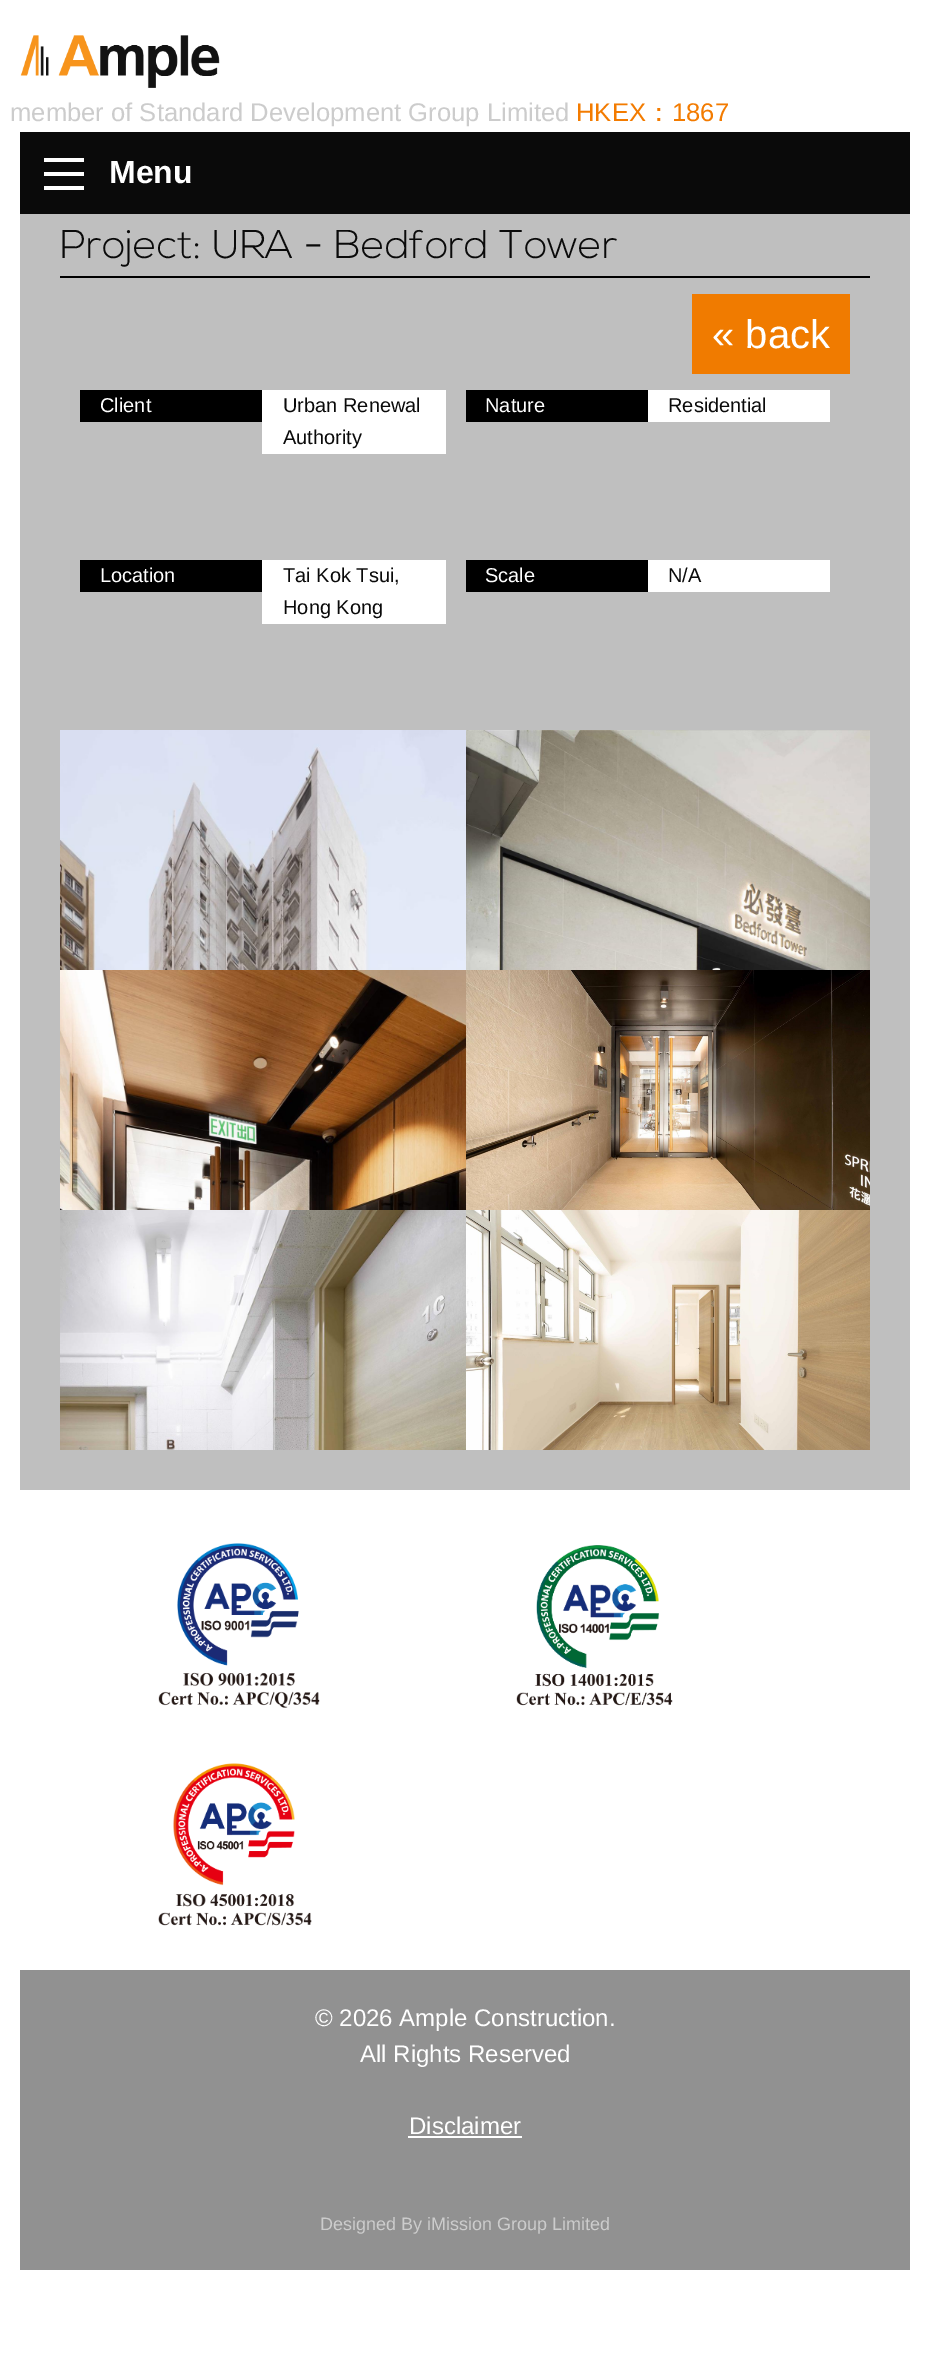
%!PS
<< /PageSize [930 2374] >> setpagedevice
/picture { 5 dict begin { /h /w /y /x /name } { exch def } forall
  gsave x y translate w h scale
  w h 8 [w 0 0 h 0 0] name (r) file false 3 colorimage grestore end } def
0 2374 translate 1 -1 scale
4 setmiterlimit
1 setgray
0 0 930 2374 rectfill
(img1.rgb) 20 35 200 53 picture
/LiberationSans-Regular [25.6 0 0 -25.6 0 0] selectfont
0.8 setgray
10 121 moveto (member of Standard Development Group Limited) show
0.953 0.482 0 setrgbcolor
576 121 moveto (HKEX) show
/WenQuanYiZenHei-Medium [25.6 0 0 -25.6 0 0] selectfont
646 121 moveto (：) show
/LiberationSans-Regular [25.6 0 0 -25.6 0 0] selectfont
672 121 moveto (1867) show
0.039 setgray
20 132 890 82 rectfill
0.996 setgray
44 186 40 4 rectfill
44 172 40 4 rectfill
44 158 40 4 rectfill
/LiberationSans-Bold [32 0 0 -32 0 0] selectfont
1 setgray
109 183 moveto (Menu) show
0.749 setgray
20 214 890 1276 rectfill
0 setgray
60 276 810 2 rectfill
/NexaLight-Light [40 0 0 -40 0 0] selectfont
0.039 setgray
60 258 moveto (Project: URA - Bedford Tower) show
0.941 0.482 0 setrgbcolor
692 294 158 80 rectfill
/LiberationSans-Regular [40 0 0 -40 0 0] selectfont
1 setgray
712 348 moveto (« back) show
0 setgray
80 390 182 32 rectfill
/LiberationSans-Regular [20 0 0 -20 0 0] selectfont
1 setgray
100 412 moveto (Client) show
262 390 184 64 rectfill
0.039 setgray
283 412 moveto (Urban Renewal) show
283 444 moveto (Authority) show
0 setgray
466 390 182 32 rectfill
1 setgray
485 412 moveto (Nature) show
648 390 182 32 rectfill
0.039 setgray
668 412 moveto (Residential) show
0 setgray
80 560 182 32 rectfill
1 setgray
100 582 moveto (Location) show
262 560 184 64 rectfill
0.039 setgray
283 582 moveto (Tai Kok Tsui,) show
283 614 moveto (Hong Kong) show
0 setgray
466 560 182 32 rectfill
1 setgray
485 582 moveto (Scale) show
648 560 182 32 rectfill
0.039 setgray
668 582 moveto (N/A) show
(img2.rgb) 60 730 406 240 picture
(img3.rgb) 466 730 404 240 picture
(img4.rgb) 60 970 406 240 picture
(img5.rgb) 466 970 404 240 picture
(img6.rgb) 60 1210 406 240 picture
(img7.rgb) 466 1210 404 240 picture
(img8.rgb) 158 1543 162 165 picture
(img9.rgb) 516 1545 157 161 picture
(img10.rgb) 158 1763 154 163 picture
0.569 setgray
20 1970 890 300 rectfill
/LiberationSans-Regular [24 0 0 -24 0 0] selectfont
1 setgray
315 2026 moveto (© 2026 Ample Construction.) show
360 2062 moveto (All Rights Reserved) show
409 2134 moveto (Disclaimer) show
408 2136 114 2 rectfill
/LiberationSans-Regular [18 0 0 -18 0 0] selectfont
0.8 setgray
320 2230 moveto (Designed By iMission Group Limited) show
showpage
